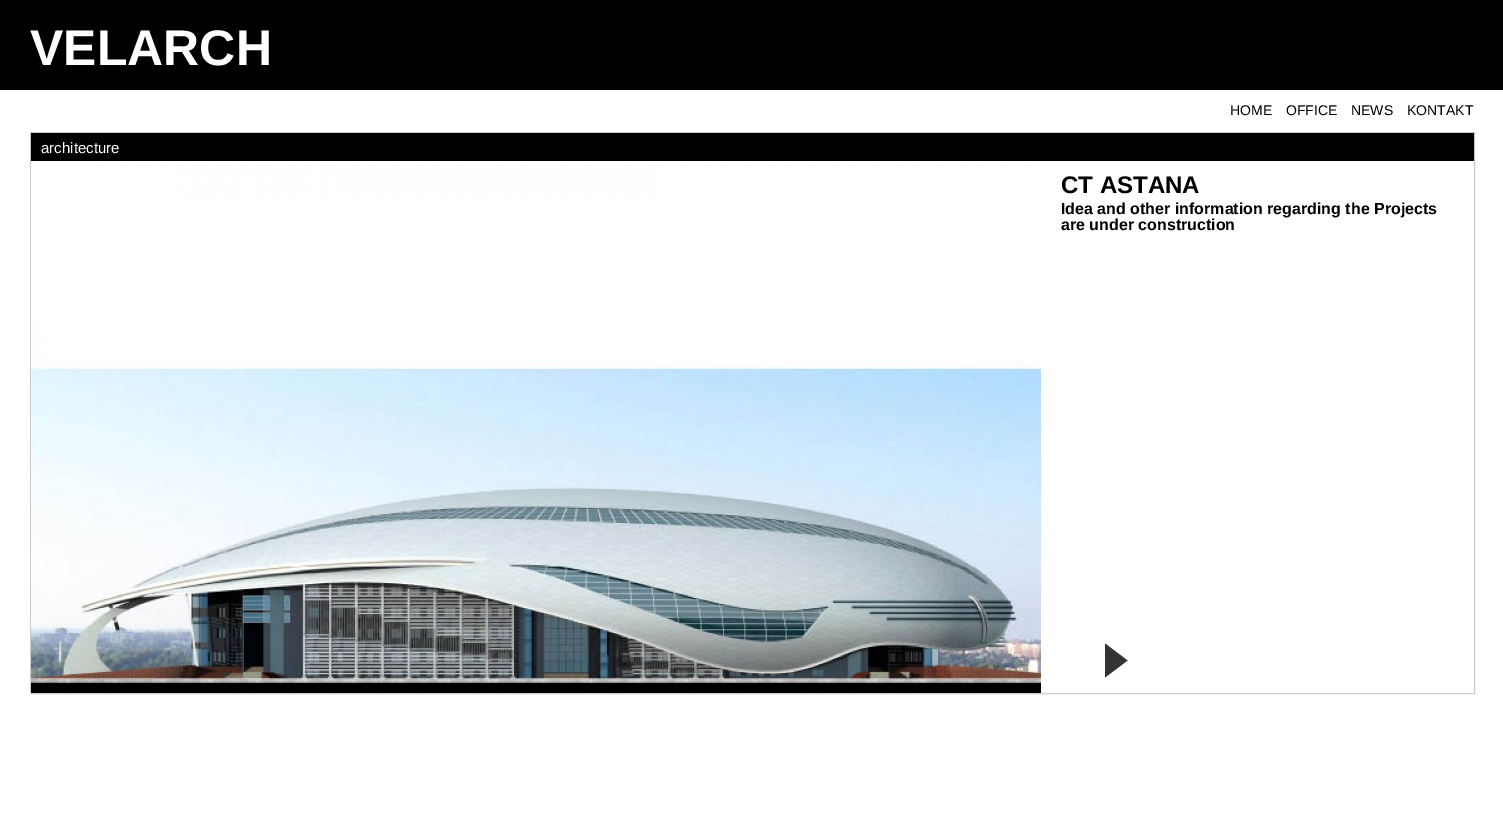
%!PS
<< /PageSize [1503 828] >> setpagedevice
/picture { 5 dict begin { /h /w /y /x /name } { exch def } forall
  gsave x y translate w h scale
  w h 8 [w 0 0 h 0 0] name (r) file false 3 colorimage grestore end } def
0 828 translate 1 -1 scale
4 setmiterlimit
1 setgray
0 0 1503 828 rectfill
0 setgray
0 0 1503 90 rectfill
/LiberationSans-Bold [50 0 0 -50 0 0] selectfont
1 setgray
30 65 moveto (VELARCH) show
/LiberationSans-Regular [14 0 0 -14 0 0] selectfont
0 setgray
1230 115 moveto (HOME) show
1286 115 moveto (OFFICE) show
1351 115 moveto (NEWS) show
1407 115 moveto (KONTAKT) show
0.8 setgray
30.5 132.5 1444 561 rectstroke
0 setgray
31 133 1443 28 rectfill
/LiberationSans-Regular [15 0 0 -15 0 0] selectfont
1 setgray
41 153 moveto (architecture) show
(img1.rgb) 31 161 1010 532 picture
(img2.rgb) 1105 643 23 35 picture
/LiberationSans-Bold [24 0 0 -24 0 0] selectfont
0 setgray
1061 193 moveto (CT ASTANA) show
/LiberationSans-Bold [16 0 0 -16 0 0] selectfont
1061 214 moveto (Idea and other information regarding the Projects) show
1061 230 moveto (are under construction) show
showpage
